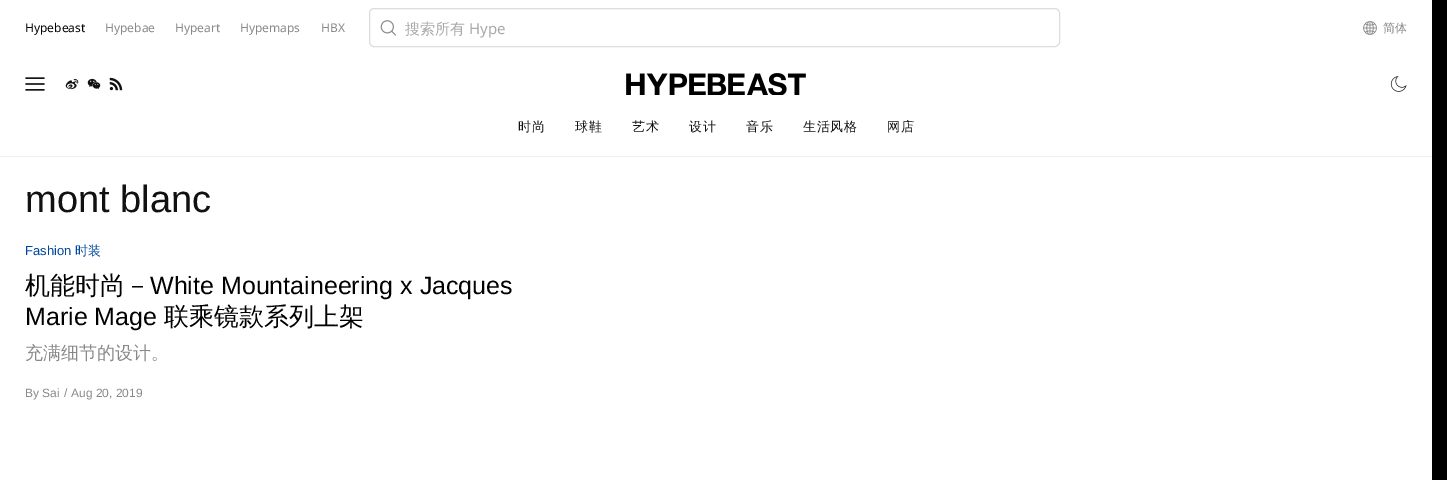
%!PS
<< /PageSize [1447 480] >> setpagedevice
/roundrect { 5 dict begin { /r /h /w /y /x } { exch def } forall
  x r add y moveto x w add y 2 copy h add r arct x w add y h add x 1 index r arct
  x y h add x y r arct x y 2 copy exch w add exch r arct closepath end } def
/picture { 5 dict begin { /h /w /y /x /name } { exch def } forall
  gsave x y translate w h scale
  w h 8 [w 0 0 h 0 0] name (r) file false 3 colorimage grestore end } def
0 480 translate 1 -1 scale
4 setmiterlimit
0 setgray
0 0 1447 480 rectfill
1 setgray
0 0 1432 480 rectfill
0.933 setgray
0 156 1432 1 rectfill
/NotoSans-Regular [12 0 0 -12 0 0] selectfont
0 setgray
25 32 moveto (Hypebeast) show
0.533 setgray
105 32 moveto (Hypebae) show
175 32 moveto (Hypeart) show
240 32 moveto (Hypemaps) show
321 32 moveto (HBX) show
0.867 setgray
369.5 8.5 690 38 4.5 roundrect stroke
(img1.rgb) 380 20 16 16 picture
/WenQuanYiZenHei-Medium [15 0 0 -15 0 0] selectfont
0.667 setgray
405 34 moveto (搜索所有) show
/NotoSans-Regular [15 0 0 -15 0 0] selectfont
469 34 moveto (Hype) show
(img2.rgb) 1363 21 14 14 picture
/WenQuanYiZenHei-Medium [12 0 0 -12 0 0] selectfont
0.533 setgray
1383 32 moveto (简体) show
(img3.rgb) 25 77 20 14 picture
(img4.rgb) 65 79 14 11 picture
(img5.rgb) 87 78 14 11 picture
(img6.rgb) 109 77 14 14 picture
(img7.rgb) 626 73 180 22 picture
(img8.rgb) 1390 76 17 16 picture
/WenQuanYiZenHei-Medium [13 0 0 -13 0 0] selectfont
0.067 setgray
518 131 moveto 0.5 0 (时尚) ashow
575 131 moveto 0.5 0 (球鞋) ashow
632 131 moveto 0.5 0 (艺术) ashow
689 131 moveto 0.5 0 (设计) ashow
746 131 moveto 0.5 0 (音乐) ashow
803 131 moveto 0.5 0 (生活风格) ashow
887 131 moveto 0.5 0 (网店) ashow
/LiberationSans-Regular [38 0 0 -38 0 0] selectfont
25 212 moveto (mont blanc) show
/LiberationSans-Regular [13 0 0 -13 0 0] selectfont
0 0.275 0.608 setrgbcolor
25 255 moveto (Fashion) show
/WenQuanYiZenHei-Medium [13 0 0 -13 0 0] selectfont
75 255 moveto (时装) show
/WenQuanYiZenHei-Medium [25 0 0 -25 0 0] selectfont
0 setgray
25 294 moveto (机能时尚－) show
/LiberationSans-Regular [25 0 0 -25 0 0] selectfont
150 294 moveto (White Mountaineering x Jacques) show
25 325 moveto (Marie Mage) show
/WenQuanYiZenHei-Medium [25 0 0 -25 0 0] selectfont
164 325 moveto (联乘镜款系列上架) show
/WenQuanYiZenHei-Medium [18 0 0 -18 0 0] selectfont
0.533 setgray
25 359 moveto (充满细节的设计。) show
/LiberationSans-Regular [12 0 0 -12 0 0] selectfont
25 397 moveto (By Sai) show
64 397 moveto (/) show
71 397 moveto (Aug 20, 2019) show
showpage
